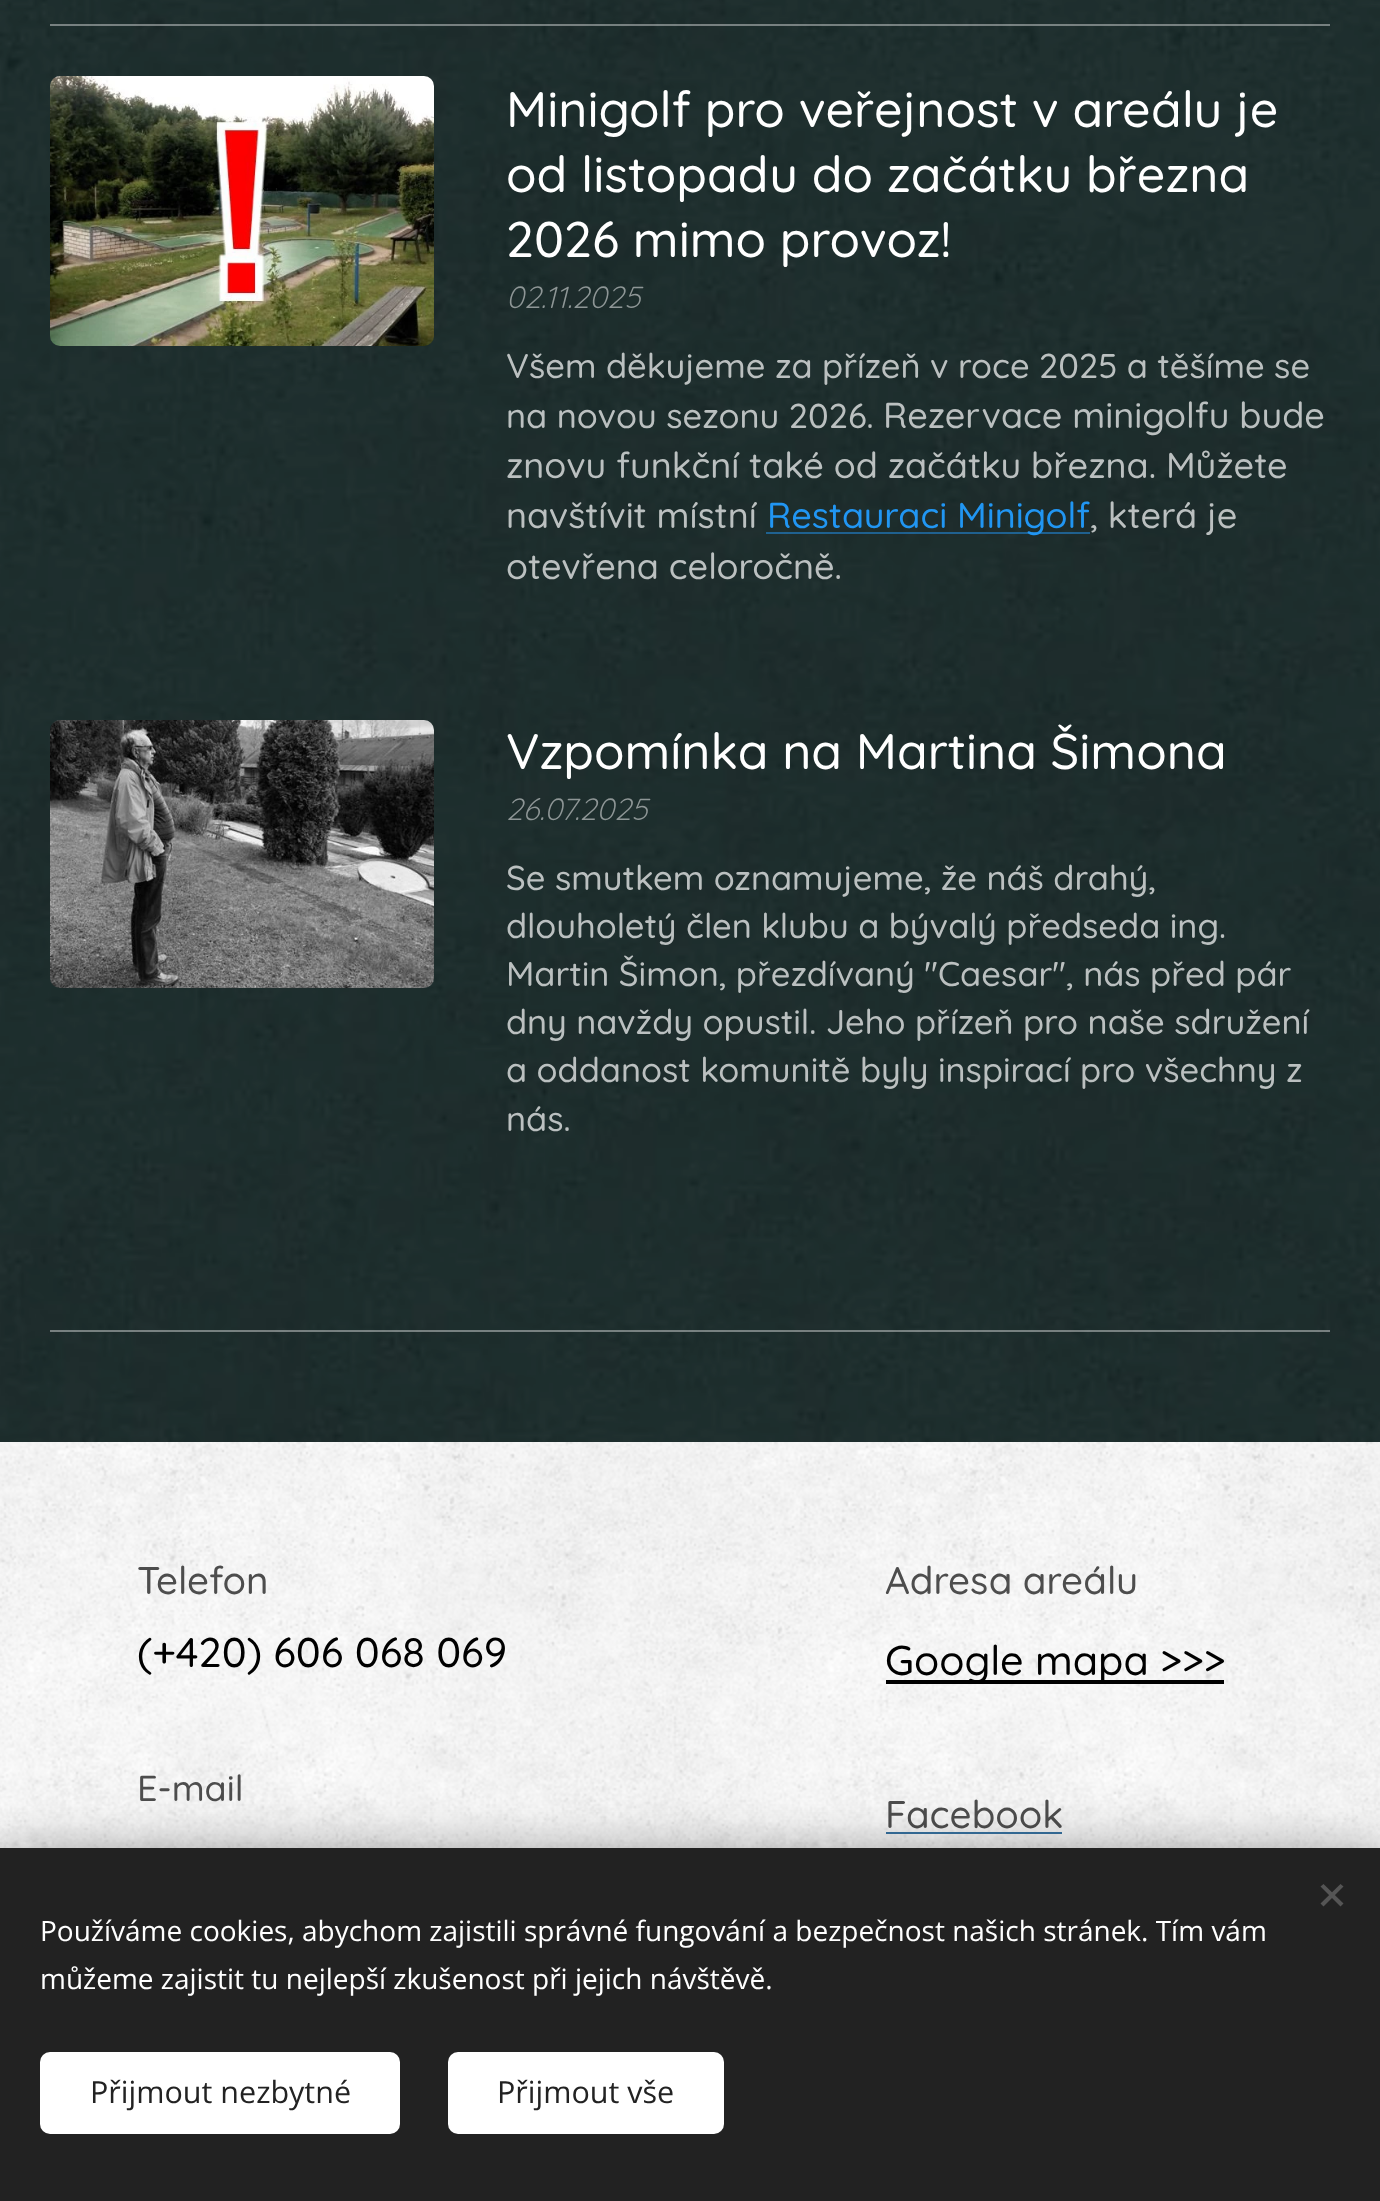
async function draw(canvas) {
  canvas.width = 1380
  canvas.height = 2201
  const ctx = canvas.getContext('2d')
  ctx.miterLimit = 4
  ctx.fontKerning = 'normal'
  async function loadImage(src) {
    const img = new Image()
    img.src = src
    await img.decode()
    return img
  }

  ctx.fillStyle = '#fff'
  ctx.fillRect(0, 0, 1380, 2201)
  ctx.drawImage(await loadImage('image0.png'), 0, 0, 1380, 1442)
  ctx.fillStyle = '#ffffff66'
  ctx.fillRect(50, 24, 1280, 2)
  ctx.drawImage(await loadImage('image1.png'), 50, 76, 384, 270)
  ctx.font = '500 50px Quicksand'
  ctx.fillStyle = '#fff'
  ctx.fillText('Minigolf pro veřejnost v areálu je', 506, 127)
  ctx.fillText('od listopadu do začátku března', 506, 192)
  ctx.fillText('2026 mimo provoz!', 506, 257)
  ctx.font = 'italic 300 30.5px Quicksand'
  ctx.fillStyle = '#8e9696'
  ctx.fillText('02.11.2025', 506, 308)
  ctx.font = '500 34.4px Quicksand'
  ctx.fillStyle = '#bbc0c0'
  ctx.fillText('Všem děkujeme za přízeň v roce 2025 a těšíme se', 506, 378)
  ctx.fillText('na novou sezonu 2026.', 506, 428)
  ctx.font = '500 36px Quicksand'
  ctx.fillText('Rezervace minigolfu bude', 883, 428)
  ctx.fillText('znovu funkční také od začátku března. Můžete', 506, 478)
  ctx.fillText('navštívit místní', 506, 528)
  ctx.fillStyle = '#2196f380'
  ctx.fillRect(766, 532, 324, 2)
  ctx.fillStyle = '#2196f3'
  ctx.fillText('Restauraci Minigolf', 767, 528)
  ctx.fillStyle = '#bbc0c0'
  ctx.fillText(', která je', 1090, 528)
  ctx.fillText('otevřena celoročně.', 506, 579)
  ctx.drawImage(await loadImage('image2.png'), 50, 720, 384, 268)
  ctx.font = '500 50px Quicksand'
  ctx.fillStyle = '#fff'
  ctx.fillText('Vzpomínka na Martina Šimona', 506, 769)
  ctx.font = 'italic 300 30.5px Quicksand'
  ctx.fillStyle = '#8e9696'
  ctx.fillText('26.07.2025', 506, 820)
  ctx.font = '500 34.4px Quicksand'
  ctx.fillStyle = '#bbc0c0'
  ctx.fillText('Se smutkem oznamujeme, že náš drahý,', 506, 890)
  ctx.fillText('dlouholetý člen klubu a bývalý předseda ing.', 506, 938)
  ctx.fillText('Martin Šimon, přezdívaný "Caesar", nás před pár', 506, 986)
  ctx.fillText('dny navždy opustil. Jeho přízeň pro naše sdružení', 506, 1034)
  ctx.fillText('a oddanost komunitě byly inspirací pro všechny z', 506, 1082)
  ctx.fillText('nás.', 506, 1131)
  ctx.fillStyle = '#ffffff66'
  ctx.fillRect(50, 1330, 1280, 2)
  ctx.drawImage(await loadImage('image3.png'), 0, 1442, 1380, 406)
  ctx.font = '500 38.5px Quicksand'
  ctx.fillStyle = '#4d4d4d'
  ctx.fillText('Telefon', 137, 1594)
  ctx.font = '500 41.5px Quicksand'
  ctx.fillStyle = '#000'
  ctx.fillText('(+420) 606 068 069', 137, 1667)
  ctx.font = '500 36px Quicksand'
  ctx.fillStyle = '#4d4d4d'
  ctx.fillText('E-mail', 137, 1801)
  ctx.font = '500 38.5px Quicksand'
  ctx.fillText('Adresa areálu', 885, 1594)
  ctx.font = '500 41.5px Quicksand'
  ctx.fillStyle = '#000'
  ctx.fillText('G', 885, 1675)
  ctx.fillRect(886, 1680, 338, 4)
  ctx.font = '500 41.25px Quicksand'
  ctx.fillText('oogle mapa >>>', 914, 1675)
  ctx.font = '500 38.5px Quicksand'
  ctx.fillStyle = '#4d4d4d'
  ctx.fillText('Facebook', 885, 1828)
  ctx.fillStyle = '#3772a0'
  ctx.fillRect(886, 1832, 176, 2)
  ctx.fillStyle = '#00000054'
  ctx.filter = 'blur(25px)'
  ctx.beginPath()
  ctx.rect(0, 1848, 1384, 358)
  ctx.fill()
  ctx.filter = 'none'
  ctx.fillStyle = '#222'
  ctx.fillRect(0, 1848, 1380, 353)
  ctx.fillStyle = '#555'
  ctx.beginPath()
  ctx.moveTo(1320.5, 1903.5)
  ctx.lineTo(1340.5, 1884)
  ctx.lineTo(1343.5, 1886.5)
  ctx.lineTo(1323.5, 1906.5)
  ctx.closePath()
  ctx.fill()
  ctx.beginPath()
  ctx.moveTo(1323.5, 1884)
  ctx.lineTo(1343.5, 1903.5)
  ctx.lineTo(1340.5, 1906.5)
  ctx.lineTo(1320.5, 1886.5)
  ctx.closePath()
  ctx.fill()
  ctx.font = '28px Open Sans'
  ctx.fillStyle = '#fff'
  ctx.fillText('Používáme cookies, abychom zajistili správné fungování a bezpečnost našich stránek. Tím vám', 40, 1941)
  ctx.fillText('můžeme zajistit tu nejlepší zkušenost při jejich návštěvě.', 40, 1989)
  ctx.beginPath()
  ctx.roundRect(40, 2052, 360, 82, 10)
  ctx.fill()
  ctx.font = '30.5px Open Sans'
  ctx.fillStyle = '#222'
  ctx.fillText('Přijmout nezbytné', 90, 2103)
  ctx.fillStyle = '#fff'
  ctx.beginPath()
  ctx.roundRect(448, 2052, 276, 82, 10)
  ctx.fill()
  ctx.fillStyle = '#222'
  ctx.fillText('Přijmout vše', 497, 2103)
}

draw(document.querySelector('canvas'))
